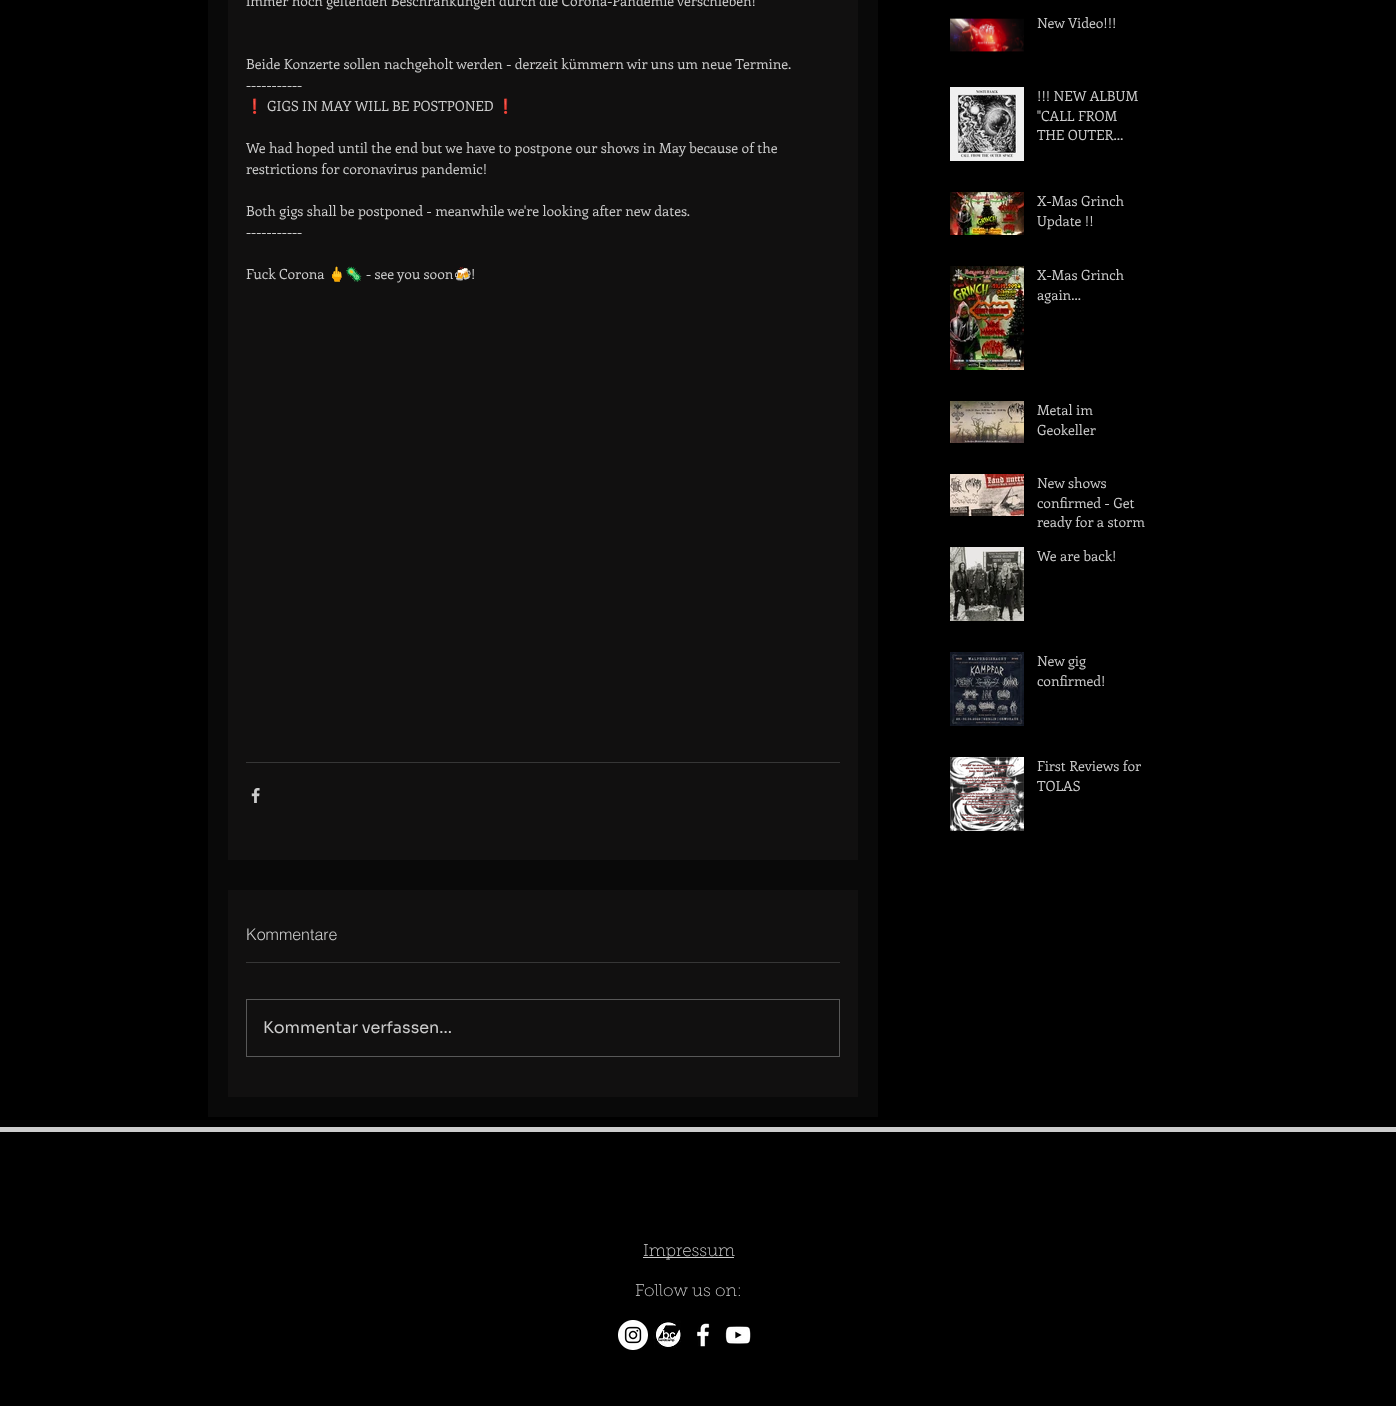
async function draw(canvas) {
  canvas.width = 1396
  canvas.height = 1406
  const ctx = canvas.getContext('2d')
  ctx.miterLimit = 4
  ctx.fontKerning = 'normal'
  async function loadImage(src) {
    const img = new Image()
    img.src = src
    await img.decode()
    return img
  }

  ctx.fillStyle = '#000'
  ctx.fillRect(0, 0, 1396, 1406)
  ctx.fillStyle = '#090909'
  ctx.fillRect(208, 0, 670, 1117)
  ctx.fillStyle = '#111010'
  ctx.fillRect(228, 0, 630, 860)
  ctx.font = '14px Enriqueta'
  ctx.fillStyle = '#ccc'
  ctx.fillText('immer noch geltenden Beschränkungen durch die Corona-Pandemie verschieben!', 246, 6)
  ctx.fillText('Beide Konzerte sollen nachgeholt werden - derzeit kümmern wir uns um neue Termine.', 246, 69)
  ctx.fillText('-----------', 246, 90)
  ctx.font = '14px Noto Color Emoji'
  ctx.fillText('❗️', 246, 111)
  ctx.font = '14px Enriqueta'
  ctx.fillText('GIGS IN MAY WILL BE POSTPONED', 267, 111)
  ctx.font = '14px Noto Color Emoji'
  ctx.fillText('❗️', 497, 111)
  ctx.font = '14px Enriqueta'
  ctx.fillText('We had hoped until the end but we have to postpone our shows in May because of the', 246, 153)
  ctx.fillText('restrictions for coronavirus pandemic!', 246, 174)
  ctx.fillText('Both gigs shall be postponed - meanwhile we\'re looking after new dates.', 246, 216)
  ctx.fillText('-----------', 246, 237)
  ctx.fillText('Fuck Corona', 246, 279)
  ctx.font = '14px Noto Color Emoji'
  ctx.fillText('🖕🦠', 328, 279)
  ctx.font = '14px Enriqueta'
  ctx.fillText('- see you soon', 366, 279)
  ctx.font = '14px Noto Color Emoji'
  ctx.fillText('🍻', 454, 279)
  ctx.font = '14px Enriqueta'
  ctx.fillText('!', 471, 279)
  ctx.fillStyle = '#363636'
  ctx.fillRect(246, 762, 594, 1)
  ctx.drawImage(await loadImage('image0.png'), 251, 788, 9, 15)
  ctx.fillStyle = '#111010'
  ctx.fillRect(228, 890, 630, 207)
  ctx.font = '300 16px helvetica'
  ctx.fillStyle = '#ccc'
  ctx.fillText('Kommentare', 246, 940)
  ctx.fillStyle = '#363636'
  ctx.fillRect(246, 962, 594, 1)
  ctx.strokeStyle = '#585858'
  ctx.strokeRect(246.5, 999.5, 593, 57)
  ctx.font = '16px Sora'
  ctx.fillStyle = '#ccc'
  ctx.fillText('Kommentar verfassen...', 263, 1033)
  ctx.drawImage(await loadImage('image1.png'), 950, 18, 74, 34)
  ctx.font = '14px Enriqueta'
  ctx.fillText('New Video!!!', 1037, 28)
  ctx.drawImage(await loadImage('image2.png'), 950, 87, 74, 74)
  ctx.fillText('!!! NEW ALBUM', 1037, 101)
  ctx.fillText('"CALL FROM', 1037, 121)
  ctx.fillText('THE OUTER…', 1037, 140)
  ctx.drawImage(await loadImage('image3.png'), 950, 192, 74, 43)
  ctx.fillText('X-Mas Grinch', 1037, 206)
  ctx.fillText('Update !!', 1037, 226)
  ctx.drawImage(await loadImage('image4.png'), 950, 266, 74, 104)
  ctx.fillText('X-Mas Grinch', 1037, 280)
  ctx.fillText('again...', 1037, 300)
  ctx.drawImage(await loadImage('image5.png'), 950, 401, 74, 42)
  ctx.fillText('Metal im', 1037, 415)
  ctx.fillText('Geokeller', 1037, 435)
  ctx.drawImage(await loadImage('image6.png'), 950, 474, 74, 42)
  ctx.fillText('New shows', 1037, 488)
  ctx.fillText('confirmed - Get', 1037, 508)
  ctx.save()
  ctx.beginPath()
  ctx.rect(1037, 473, 108, 56)
  ctx.clip()
  ctx.fillText('ready for a storm', 1037, 527)
  ctx.restore()
  ctx.drawImage(await loadImage('image7.png'), 950, 547, 74, 74)
  ctx.fillText('We are back!', 1037, 561)
  ctx.drawImage(await loadImage('image8.png'), 950, 652, 74, 74)
  ctx.fillText('New gig', 1037, 666)
  ctx.fillText('confirmed!', 1037, 686)
  ctx.drawImage(await loadImage('image9.png'), 950, 757, 74, 74)
  ctx.fillText('First Reviews for', 1037, 771)
  ctx.fillText('TOLAS', 1037, 791)
  ctx.fillRect(0, 1127, 1396, 5)
  ctx.fillRect(643, 1257, 91, 1)
  ctx.font = '100 17px "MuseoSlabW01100"'
  ctx.fillText('Impressum', 643, 1256)
  ctx.fillText('Follow us on:', 635, 1296)
  ctx.drawImage(await loadImage('image10.png'), 618, 1320, 30, 30)
  ctx.drawImage(await loadImage('image11.png'), 653, 1320, 28, 28)
  ctx.drawImage(await loadImage('image12.png'), 697, 1323, 13, 24)
  ctx.drawImage(await loadImage('image13.png'), 725, 1326, 26, 18)
}

draw(document.querySelector('canvas'))
